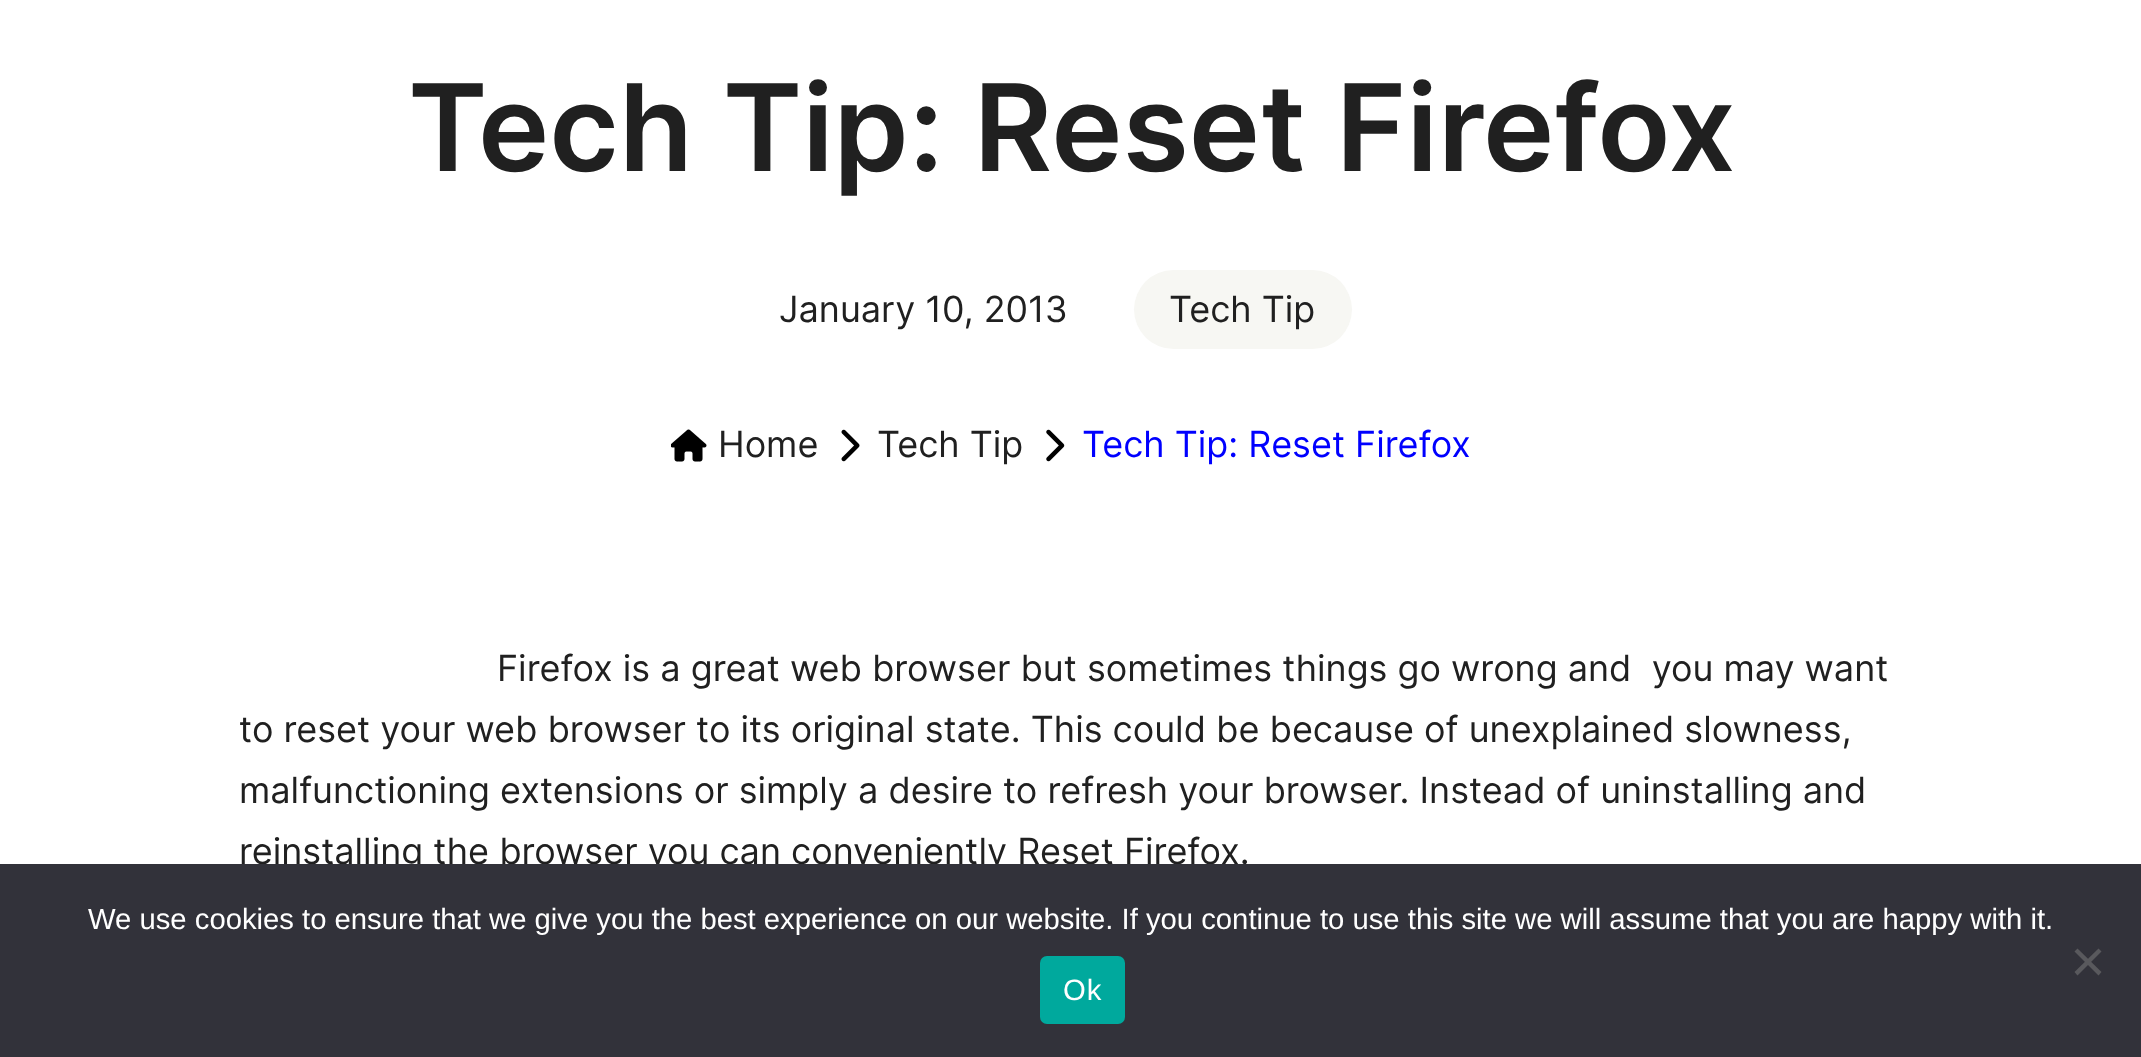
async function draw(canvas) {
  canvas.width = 2141
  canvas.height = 1057
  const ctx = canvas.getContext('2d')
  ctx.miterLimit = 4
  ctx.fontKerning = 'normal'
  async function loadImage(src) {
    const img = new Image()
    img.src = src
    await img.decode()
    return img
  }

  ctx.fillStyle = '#fff'
  ctx.fillRect(0, 0, 2141, 1057)
  ctx.font = '600 120.5px Inter'
  ctx.fillStyle = '#202020'
  ctx.fillText('Tech Tip: Reset Firefox', 408, 171)
  ctx.font = '36px Inter'
  ctx.fillText('January 10, 2013', 779, 322)
  ctx.fillStyle = '#f7f7f3'
  ctx.beginPath()
  ctx.roundRect(1134, 270, 218, 79, 39.5)
  ctx.fill()
  ctx.fillStyle = '#202020'
  ctx.fillText('Tech Tip', 1169, 322)
  ctx.drawImage(await loadImage('image0.png'), 671, 429, 36, 33)
  ctx.fillText('Home', 718, 457)
  ctx.drawImage(await loadImage('image1.png'), 841, 429, 19, 33)
  ctx.fillText('Tech Tip', 877, 457)
  ctx.drawImage(await loadImage('image2.png'), 1046, 429, 19, 33)
  ctx.fillStyle = '#00f'
  ctx.fillText('Tech Tip: Reset Firefox', 1082, 457)
  ctx.fillStyle = '#202020'
  ctx.fillText('Firefox is a great web browser but sometimes things go wrong and  you may want', 497, 681)
  ctx.fillText('to reset your web browser to its original state. This could be because of unexplained slowness,', 239, 742)
  ctx.fillText('malfunctioning extensions or simply a desire to refresh your browser. Instead of uninstalling and', 239, 803)
  ctx.fillText('reinstalling the browser you can conveniently Reset Firefox.', 239, 864)
  ctx.fillStyle = '#32323a'
  ctx.fillRect(0, 864, 2141, 193)
  ctx.font = '29.25px Liberation Sans'
  ctx.fillStyle = '#fff'
  ctx.fillText('We use cookies to ensure that we give you the best experience on our website. If you continue to use this site we will assume that you are happy with it.', 88, 929)
  ctx.fillStyle = '#59595d'
  ctx.beginPath()
  ctx.moveTo(2098.5, 948.5)
  ctx.lineTo(2101.5, 951.5)
  ctx.lineTo(2077.5, 975.5)
  ctx.lineTo(2074.5, 972)
  ctx.closePath()
  ctx.fill()
  ctx.beginPath()
  ctx.moveTo(2074.5, 951.5)
  ctx.lineTo(2077.5, 948.5)
  ctx.lineTo(2101.5, 972)
  ctx.lineTo(2098.5, 975.5)
  ctx.closePath()
  ctx.fill()
  ctx.fillStyle = '#00a99d'
  ctx.beginPath()
  ctx.roundRect(1040, 956, 85, 68, 7)
  ctx.fill()
  ctx.letterSpacing = '1px'
  ctx.fillStyle = '#fff'
  ctx.fillText('Ok', 1063, 1000)
}

draw(document.querySelector('canvas'))
